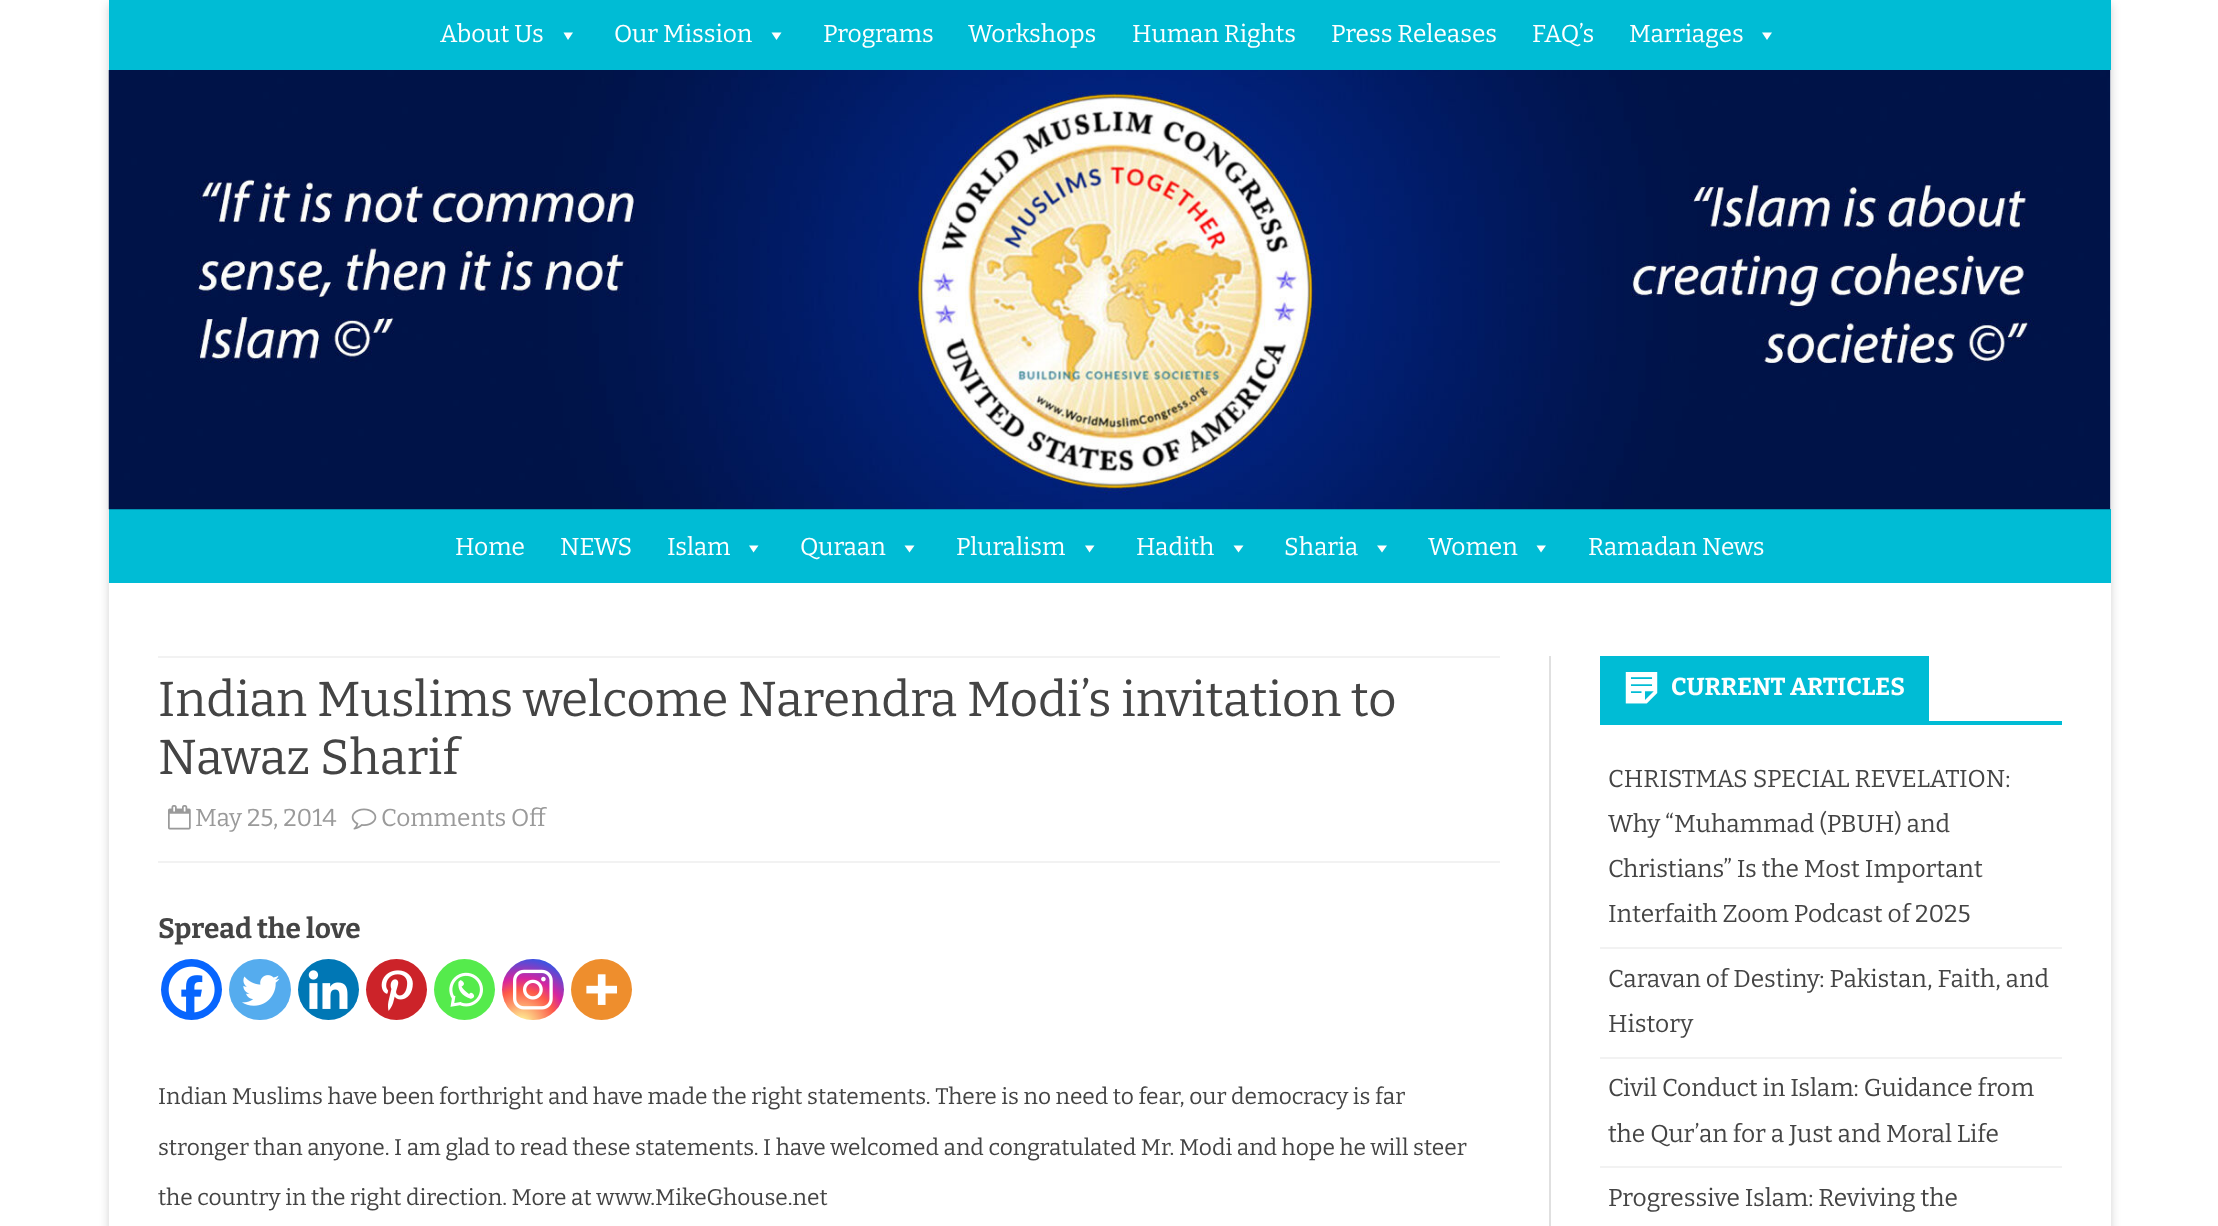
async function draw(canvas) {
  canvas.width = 2218
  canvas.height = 1226
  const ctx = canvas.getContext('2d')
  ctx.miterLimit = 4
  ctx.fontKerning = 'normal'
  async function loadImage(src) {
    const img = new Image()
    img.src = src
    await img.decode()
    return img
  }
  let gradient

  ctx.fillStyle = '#fff'
  ctx.fillRect(0, 0, 2218, 1226)
  ctx.fillStyle = '#6464644d'
  ctx.filter = 'blur(5px)'
  ctx.beginPath()
  ctx.rect(109, 4, 2002, 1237)
  ctx.fill()
  ctx.filter = 'none'
  ctx.fillStyle = '#fff'
  ctx.fillRect(109, 70, 2002, 1156)
  ctx.fillStyle = '#00bcd5'
  ctx.fillRect(109, 0, 2002, 70)
  ctx.font = '24.5px Bitter'
  ctx.fillStyle = '#fff'
  ctx.fillText('About Us', 440, 42)
  ctx.beginPath()
  ctx.moveTo(573, 32.5)
  ctx.lineTo(568, 40)
  ctx.lineTo(563.5, 32.5)
  ctx.closePath()
  ctx.fill()
  ctx.fillText('Our Mission', 614, 42)
  ctx.beginPath()
  ctx.moveTo(781.5, 32.5)
  ctx.lineTo(776.5, 40)
  ctx.lineTo(771.5, 32.5)
  ctx.closePath()
  ctx.fill()
  ctx.fillText('Programs', 823, 42)
  ctx.fillText('Workshops', 968, 42)
  ctx.fillText('Human Rights', 1132, 42)
  ctx.fillText('Press Releases', 1331, 42)
  ctx.fillText('FAQ’s', 1532, 42)
  ctx.fillText('Marriages', 1629, 42)
  ctx.beginPath()
  ctx.moveTo(1772, 32.5)
  ctx.lineTo(1767, 40)
  ctx.lineTo(1762, 32.5)
  ctx.closePath()
  ctx.fill()
  ctx.fillStyle = '#00bcd5'
  ctx.fillRect(109, 509, 2002, 74)
  ctx.drawImage(await loadImage('image0.png'), 108, 70, 2003, 440)
  ctx.fillStyle = '#fff'
  ctx.fillText('Home', 455, 555)
  ctx.fillText('NEWS', 560, 555)
  ctx.fillText('Islam', 667, 555)
  ctx.beginPath()
  ctx.moveTo(758.5, 545.5)
  ctx.lineTo(753.5, 552.5)
  ctx.lineTo(749, 545.5)
  ctx.closePath()
  ctx.fill()
  ctx.fillText('Quraan', 800, 555)
  ctx.beginPath()
  ctx.moveTo(914.5, 545.5)
  ctx.lineTo(909.5, 552.5)
  ctx.lineTo(904.5, 545.5)
  ctx.closePath()
  ctx.fill()
  ctx.fillText('Pluralism', 956, 555)
  ctx.beginPath()
  ctx.moveTo(1094.5, 545.5)
  ctx.lineTo(1089.5, 552.5)
  ctx.lineTo(1085, 545.5)
  ctx.closePath()
  ctx.fill()
  ctx.fillText('Hadith', 1136, 555)
  ctx.beginPath()
  ctx.moveTo(1243.5, 545.5)
  ctx.lineTo(1238.5, 552.5)
  ctx.lineTo(1233.5, 545.5)
  ctx.closePath()
  ctx.fill()
  ctx.fillText('Sharia', 1284, 555)
  ctx.beginPath()
  ctx.moveTo(1387, 545.5)
  ctx.lineTo(1382, 552.5)
  ctx.lineTo(1377, 545.5)
  ctx.closePath()
  ctx.fill()
  ctx.fillText('Women', 1428, 555)
  ctx.beginPath()
  ctx.moveTo(1546, 545.5)
  ctx.lineTo(1541, 552.5)
  ctx.lineTo(1536.5, 545.5)
  ctx.closePath()
  ctx.fill()
  ctx.fillText('Ramadan News', 1588, 555)
  ctx.fillStyle = '#e0e0e0'
  ctx.fillRect(1549, 656, 2, 570)
  ctx.fillStyle = '#f2f2f2'
  ctx.fillRect(158, 656, 1342, 2)
  ctx.fillRect(158, 861, 1342, 2)
  ctx.font = '49px Bitter'
  ctx.fillStyle = '#444'
  ctx.fillText('Indian Muslims welcome Narendra Modi’s invitation to', 158, 716)
  ctx.fillText('Nawaz Sharif', 158, 774)
  ctx.drawImage(await loadImage('image1.png'), 168, 805, 23, 25)
  ctx.font = '24.5px Bitter'
  ctx.fillStyle = '#9a9a9a'
  ctx.fillText('May 25, 2014', 195, 826)
  ctx.drawImage(await loadImage('image2.png'), 351, 808, 26, 22)
  ctx.fillText('Comments Off', 381, 826)
  ctx.font = 'bold 28px Bitter'
  ctx.fillStyle = '#444'
  ctx.fillText('Spread the love', 158, 938)
  ctx.fillStyle = '#0765fe'
  ctx.beginPath()
  ctx.arc(191.5, 989.5, 30.5, 0, 2 * Math.PI)
  ctx.fill()
  ctx.drawImage(await loadImage('image3.png'), 168, 966, 47, 47)
  ctx.fillStyle = '#55acee'
  ctx.beginPath()
  ctx.roundRect(229, 959, 62, 61, 30.5)
  ctx.fill()
  ctx.drawImage(await loadImage('image4.png'), 242, 975, 38, 31)
  ctx.fillStyle = '#0077b5'
  ctx.beginPath()
  ctx.arc(328.5, 989.5, 30.5, 0, 2 * Math.PI)
  ctx.fill()
  ctx.drawImage(await loadImage('image5.png'), 308, 970, 40, 39)
  ctx.fillStyle = '#cc2329'
  ctx.beginPath()
  ctx.arc(396.5, 989.5, 30.5, 0, 2 * Math.PI)
  ctx.fill()
  ctx.drawImage(await loadImage('image6.png'), 381, 970, 32, 41)
  ctx.fillStyle = '#55eb4c'
  ctx.beginPath()
  ctx.arc(464.5, 989.5, 30.5, 0, 2 * Math.PI)
  ctx.fill()
  ctx.drawImage(await loadImage('image7.png'), 449, 972, 34, 35)
  gradient = ctx.createRadialGradient(521, 1025, 0, 521, 1025, 78)
  gradient.addColorStop(0, '#fdf497')
  gradient.addColorStop(0.05, '#fdf497')
  gradient.addColorStop(0.45, '#fd5949')
  gradient.addColorStop(0.6, '#d6249f')
  gradient.addColorStop(0.9, '#285aeb')
  ctx.fillStyle = gradient
  ctx.beginPath()
  ctx.roundRect(502, 959, 62, 61, 30.5)
  ctx.fill()
  ctx.drawImage(await loadImage('image8.png'), 513, 969, 40, 41)
  ctx.fillStyle = '#ee8e2d'
  ctx.beginPath()
  ctx.arc(601.5, 989.5, 30.5, 0, 2 * Math.PI)
  ctx.fill()
  ctx.drawImage(await loadImage('image9.png'), 586, 974, 31, 31)
  ctx.font = '22.75px Bitter'
  ctx.fillStyle = '#444'
  ctx.fillText('Indian Muslims have been forthright and have made the right statements. There is no need to fear, our democracy is far', 158, 1104)
  ctx.fillText('stronger than anyone. I am glad to read these statements. I have welcomed and congratulated Mr. Modi and hope he will steer', 158, 1155)
  ctx.fillText('the country in the right direction. More at www.MikeGhouse.net', 158, 1205)
  ctx.fillStyle = '#00bcd5'
  ctx.fillRect(1600, 721, 462, 4)
  ctx.fillRect(1600, 656, 329, 65)
  ctx.drawImage(await loadImage('image10.png'), 1625, 672, 33, 32)
  ctx.font = 'bold 24.5px Bitter'
  ctx.fillStyle = '#fff'
  ctx.fillText('CURRENT ARTICLES', 1671, 695)
  ctx.fillStyle = '#f2f2f2'
  ctx.fillRect(1600, 947, 462, 2)
  ctx.font = '24.5px Bitter'
  ctx.fillStyle = '#444'
  ctx.fillText('CHRISTMAS SPECIAL REVELATION:', 1608, 787)
  ctx.fillText('Why “Muhammad (PBUH) and', 1608, 832)
  ctx.fillText('Christians” Is the Most Important', 1608, 877)
  ctx.fillText('Interfaith Zoom Podcast of 2025', 1608, 922)
  ctx.fillStyle = '#f2f2f2'
  ctx.fillRect(1600, 1057, 462, 2)
  ctx.fillStyle = '#444'
  ctx.fillText('Caravan of Destiny: Pakistan, Faith, and', 1608, 987)
  ctx.fillText('History', 1608, 1032)
  ctx.fillStyle = '#f2f2f2'
  ctx.fillRect(1600, 1166, 462, 2)
  ctx.fillStyle = '#444'
  ctx.fillText('Civil Conduct in Islam: Guidance from', 1608, 1096)
  ctx.fillText('the Qur’an for a Just and Moral Life', 1608, 1142)
  ctx.fillText('Progressive Islam: Reviving the', 1608, 1206)
}

draw(document.querySelector('canvas'))
